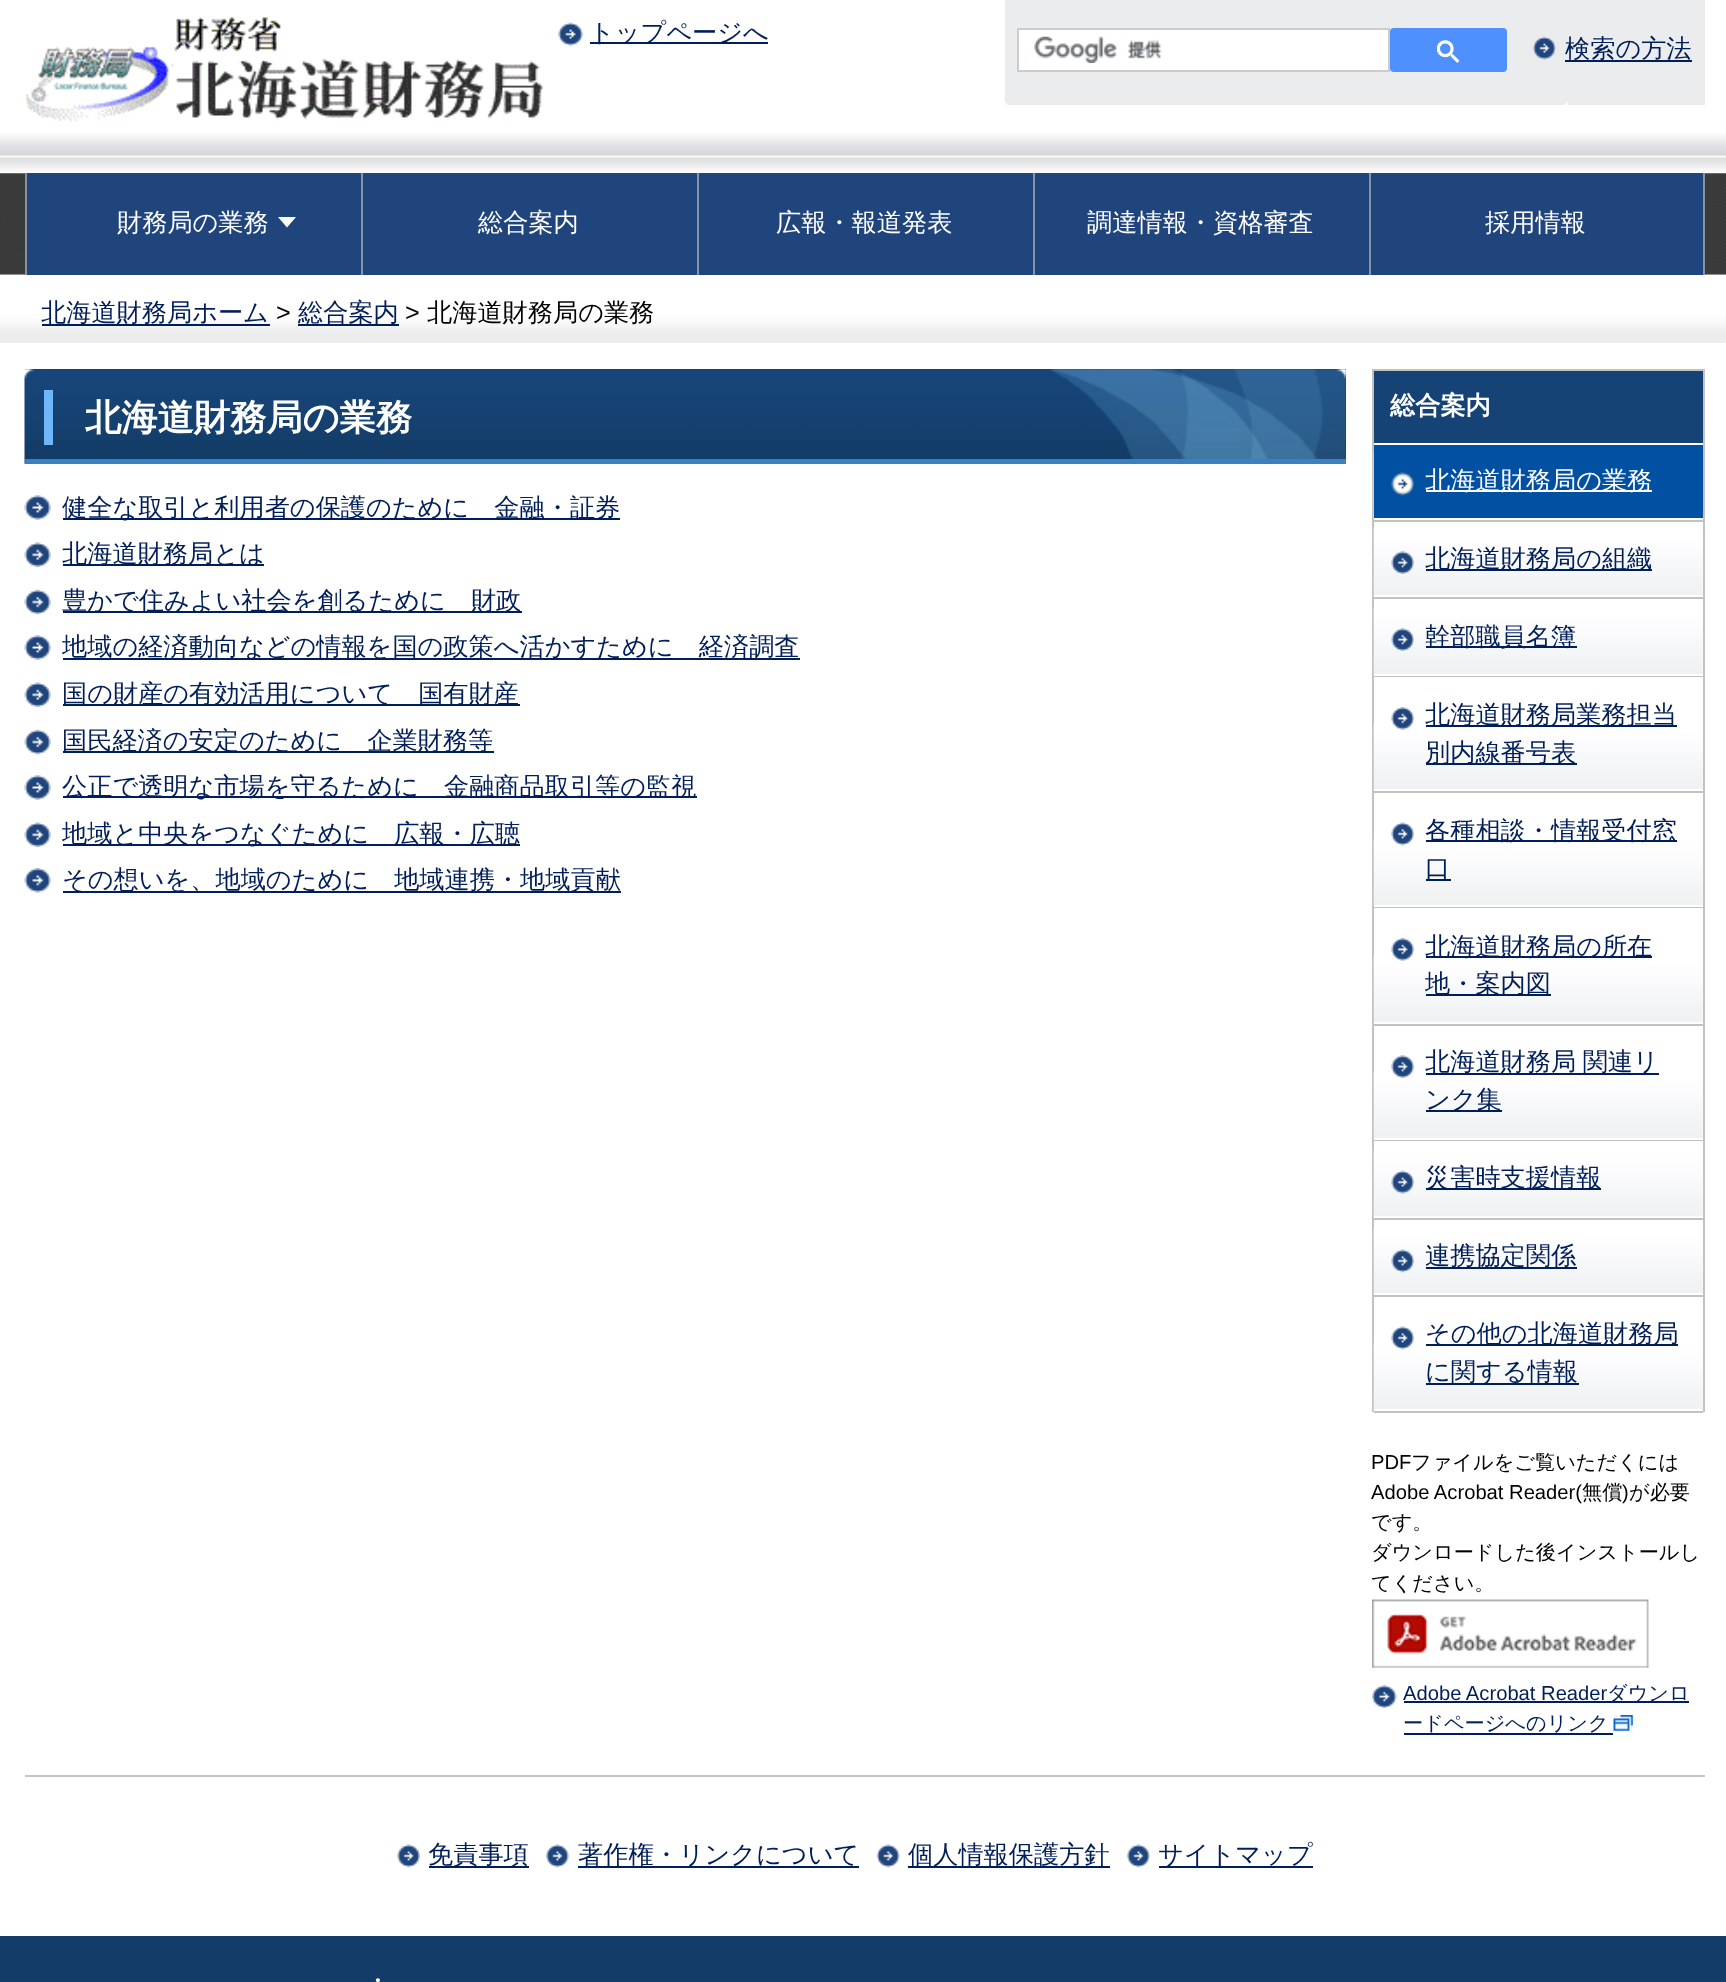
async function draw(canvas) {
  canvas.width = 1726
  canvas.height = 1982
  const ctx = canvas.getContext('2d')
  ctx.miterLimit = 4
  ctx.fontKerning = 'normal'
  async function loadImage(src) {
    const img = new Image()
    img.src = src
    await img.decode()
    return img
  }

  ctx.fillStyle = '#fff'
  ctx.fillRect(0, 0, 1726, 1982)
  ctx.drawImage(await loadImage('image0.png'), 0, 133, 1726, 39)
  ctx.drawImage(await loadImage('image1.png'), 26, 17, 517, 105)
  ctx.drawImage(await loadImage('image2.png'), 558, 22, 25, 24)
  ctx.fillStyle = '#001e59'
  ctx.fillRect(590, 42, 178, 2)
  ctx.font = '500 25.2px WenQuanYi Zen Hei'
  ctx.fillText('トップページへ', 589, 41)
  ctx.fillStyle = '#ebecee'
  ctx.fillRect(1005, 0, 700, 105)
  ctx.drawImage(await loadImage('image3.png'), 1004, 96, 564, 9)
  ctx.fillStyle = '#fff'
  ctx.fillRect(1019, 30, 369, 40)
  ctx.drawImage(await loadImage('image4.png'), 1034, 36, 128, 27)
  ctx.strokeStyle = '#ccc'
  ctx.lineWidth = 2
  ctx.strokeRect(1018, 29, 371, 42)
  ctx.fillStyle = '#4d90fe'
  ctx.beginPath()
  ctx.roundRect(1390, 28, 117, 44, 4)
  ctx.fill()
  ctx.drawImage(await loadImage('image5.png'), 1437, 40, 23, 23)
  ctx.drawImage(await loadImage('image6.png'), 1533, 36, 23, 24)
  ctx.fillStyle = '#001e59'
  ctx.fillRect(1565, 60, 127, 2)
  ctx.fillText('検索の方法', 1565, 57)
  ctx.drawImage(await loadImage('image7.png'), 0, 173, 1726, 102)
  ctx.drawImage(await loadImage('image8.png'), 0, 274, 1726, 69)
  ctx.fillStyle = '#20457c'
  ctx.fillRect(27, 173, 334, 102)
  ctx.fillStyle = '#8394a4'
  ctx.fillRect(25, 173, 2, 102)
  ctx.fillStyle = '#fff'
  ctx.fillText('財務局の業務', 117, 231)
  ctx.beginPath()
  ctx.moveTo(278, 217)
  ctx.lineTo(296, 217)
  ctx.lineTo(287, 227.5)
  ctx.closePath()
  ctx.fill()
  ctx.fillStyle = '#20457c'
  ctx.fillRect(363, 173, 334, 102)
  ctx.fillStyle = '#8394a4'
  ctx.fillRect(361, 173, 2, 102)
  ctx.fillStyle = '#fff'
  ctx.fillText('総合案内', 478, 231)
  ctx.fillStyle = '#20457c'
  ctx.fillRect(699, 173, 334, 102)
  ctx.fillStyle = '#8394a4'
  ctx.fillRect(697, 173, 2, 102)
  ctx.fillStyle = '#fff'
  ctx.fillText('広報・報道発表', 776, 231)
  ctx.fillStyle = '#20457c'
  ctx.fillRect(1035, 173, 334, 102)
  ctx.fillStyle = '#8394a4'
  ctx.fillRect(1033, 173, 2, 102)
  ctx.fillStyle = '#fff'
  ctx.fillText('調達情報・資格審査', 1087, 231)
  ctx.fillStyle = '#20457c'
  ctx.fillRect(1371, 173, 332, 102)
  ctx.fillStyle = '#8394a4'
  ctx.fillRect(1703, 173, 2, 102)
  ctx.fillRect(1369, 173, 2, 102)
  ctx.fillStyle = '#fff'
  ctx.fillText('採用情報', 1485, 231)
  ctx.fillStyle = '#001e59'
  ctx.fillRect(42, 324, 228, 2)
  ctx.fillText('北海道財務局ホーム', 41, 321)
  ctx.font = '25.2px Liberation Sans'
  ctx.fillStyle = '#000'
  ctx.fillText('>', 276, 321)
  ctx.fillStyle = '#001e59'
  ctx.fillRect(298, 324, 101, 2)
  ctx.font = '500 25.2px WenQuanYi Zen Hei'
  ctx.fillText('総合案内', 298, 321)
  ctx.font = '25.2px Liberation Sans'
  ctx.fillStyle = '#000'
  ctx.fillText('>', 405, 321)
  ctx.font = '500 25.2px WenQuanYi Zen Hei'
  ctx.fillText('北海道財務局の業務', 427, 321)
  ctx.fillStyle = '#113b63'
  ctx.fillRect(25, 369, 1321, 90)
  ctx.drawImage(await loadImage('image9.png'), 24, 369, 1322, 95)
  ctx.fillStyle = '#3a81c3'
  ctx.fillRect(25, 459, 1321, 5)
  ctx.fillStyle = '#70b7f9'
  ctx.fillRect(44, 390, 9, 55)
  ctx.font = 'bold 36.25px WenQuanYi Zen Hei'
  ctx.fillStyle = '#fff'
  ctx.fillText('北海道財務局の業務', 85, 430)
  ctx.drawImage(await loadImage('image10.png'), 24, 495, 27, 25)
  ctx.fillStyle = '#001e59'
  ctx.fillRect(63, 518, 557, 2)
  ctx.font = '500 25.2px WenQuanYi Zen Hei'
  ctx.fillText('健全な取引と利用者の保護のために　金融・証券', 62, 516)
  ctx.drawImage(await loadImage('image11.png'), 24, 542, 27, 25)
  ctx.fillRect(63, 564, 201, 2)
  ctx.fillText('北海道財務局とは', 62, 562)
  ctx.drawImage(await loadImage('image12.png'), 24, 589, 27, 26)
  ctx.fillRect(63, 611, 459, 2)
  ctx.fillText('豊かで住みよい社会を創るために　財政', 62, 609)
  ctx.drawImage(await loadImage('image13.png'), 24, 635, 27, 25)
  ctx.fillRect(63, 658, 737, 2)
  ctx.fillText('地域の経済動向などの情報を国の政策へ活かすために　経済調査', 62, 655)
  ctx.drawImage(await loadImage('image11.png'), 24, 682, 27, 25)
  ctx.fillRect(63, 704, 457, 2)
  ctx.fillText('国の財産の有効活用について　国有財産', 62, 702)
  ctx.drawImage(await loadImage('image12.png'), 24, 729, 27, 26)
  ctx.fillRect(63, 751, 431, 2)
  ctx.fillText('国民経済の安定のために　企業財務等', 62, 749)
  ctx.drawImage(await loadImage('image13.png'), 24, 775, 27, 25)
  ctx.fillRect(63, 796, 634, 2)
  ctx.fillText('公正で透明な市場を守るために　金融商品取引等の監視', 62, 795)
  ctx.drawImage(await loadImage('image11.png'), 24, 822, 27, 25)
  ctx.fillRect(63, 844, 457, 2)
  ctx.fillText('地域と中央をつなぐために　広報・広聴', 62, 842)
  ctx.drawImage(await loadImage('image14.png'), 24, 868, 27, 25)
  ctx.fillRect(63, 891, 558, 2)
  ctx.fillText('その想いを、地域のために　地域連携・地域貢献', 62, 888)
  ctx.fillStyle = '#c2c3be'
  ctx.fillRect(1372, 369, 333, 2)
  ctx.fillRect(1703, 369, 2, 1043)
  ctx.fillRect(1372, 369, 2, 1043)
  ctx.fillStyle = '#154375'
  ctx.fillRect(1374, 371, 329, 72)
  ctx.font = 'bold 25.2px WenQuanYi Zen Hei'
  ctx.fillStyle = '#fff'
  ctx.fillText('総合案内', 1390, 414)
  ctx.drawImage(await loadImage('image15.png'), 1373, 451, 1, 69)
  ctx.fillStyle = '#c2c3be'
  ctx.fillRect(1374, 520, 329, 2)
  ctx.fillStyle = '#0250a2'
  ctx.fillRect(1374, 445, 329, 73)
  ctx.drawImage(await loadImage('image16.png'), 1391, 472, 23, 24)
  ctx.fillStyle = '#fff'
  ctx.fillRect(1426, 490, 226, 2)
  ctx.font = '500 25.2px WenQuanYi Zen Hei'
  ctx.fillText('北海道財務局の業務', 1425, 489)
  ctx.drawImage(await loadImage('image17.png'), 1373, 528, 330, 69)
  ctx.fillStyle = '#c2c3be'
  ctx.fillRect(1374, 597, 329, 2)
  ctx.drawImage(await loadImage('image18.png'), 1391, 551, 23, 23)
  ctx.fillStyle = '#fff'
  ctx.fillRect(1374, 595, 329, 2)
  ctx.fillStyle = '#001e59'
  ctx.fillRect(1426, 569, 226, 2)
  ctx.fillText('北海道財務局の組織', 1425, 567)
  ctx.drawImage(await loadImage('image19.png'), 1373, 607, 330, 69)
  ctx.fillStyle = '#c2c3be'
  ctx.fillRect(1374, 676, 329, 1)
  ctx.drawImage(await loadImage('image20.png'), 1391, 628, 23, 23)
  ctx.fillStyle = '#fff'
  ctx.fillRect(1374, 674, 329, 2)
  ctx.fillStyle = '#001e59'
  ctx.fillRect(1426, 646, 151, 2)
  ctx.fillText('幹部職員名簿', 1425, 645)
  ctx.drawImage(await loadImage('image21.png'), 1373, 722, 330, 69)
  ctx.fillStyle = '#c2c3be'
  ctx.fillRect(1374, 791, 329, 2)
  ctx.drawImage(await loadImage('image22.png'), 1391, 707, 23, 23)
  ctx.fillStyle = '#fff'
  ctx.fillRect(1374, 789, 329, 2)
  ctx.fillStyle = '#001e59'
  ctx.fillRect(1426, 725, 251, 2)
  ctx.fillText('北海道財務局業務担当', 1425, 723)
  ctx.fillRect(1426, 763, 151, 2)
  ctx.fillText('別内線番号表', 1425, 761)
  ctx.drawImage(await loadImage('image19.png'), 1373, 838, 330, 69)
  ctx.fillStyle = '#c2c3be'
  ctx.fillRect(1374, 907, 329, 1)
  ctx.drawImage(await loadImage('image23.png'), 1391, 822, 23, 24)
  ctx.fillStyle = '#fff'
  ctx.fillRect(1374, 905, 329, 2)
  ctx.fillStyle = '#001e59'
  ctx.fillRect(1426, 840, 251, 2)
  ctx.fillText('各種相談・情報受付窓', 1425, 839)
  ctx.fillRect(1426, 879, 25, 2)
  ctx.fillText('口', 1425, 877)
  ctx.drawImage(await loadImage('image17.png'), 1373, 955, 330, 69)
  ctx.fillStyle = '#c2c3be'
  ctx.fillRect(1374, 1024, 329, 2)
  ctx.drawImage(await loadImage('image22.png'), 1391, 938, 23, 23)
  ctx.fillStyle = '#fff'
  ctx.fillRect(1374, 1022, 329, 2)
  ctx.fillStyle = '#001e59'
  ctx.fillRect(1426, 956, 226, 2)
  ctx.fillText('北海道財務局の所在', 1425, 955)
  ctx.fillRect(1426, 994, 125, 2)
  ctx.fillText('地・案内図', 1425, 992)
  ctx.drawImage(await loadImage('image24.png'), 1373, 1071, 330, 69)
  ctx.fillStyle = '#c2c3be'
  ctx.fillRect(1374, 1140, 329, 1)
  ctx.drawImage(await loadImage('image25.png'), 1391, 1055, 23, 23)
  ctx.fillStyle = '#fff'
  ctx.fillRect(1374, 1138, 329, 2)
  ctx.fillStyle = '#001e59'
  ctx.fillRect(1426, 1073, 233, 2)
  ctx.wordSpacing = '-1px'
  ctx.fillText('北海道財務局 関連リ', 1425, 1070)
  ctx.fillRect(1426, 1110, 76, 2)
  ctx.wordSpacing = '0px'
  ctx.fillText('ンク集', 1425, 1108)
  ctx.drawImage(await loadImage('image21.png'), 1373, 1149, 330, 69)
  ctx.fillStyle = '#c2c3be'
  ctx.fillRect(1374, 1218, 329, 2)
  ctx.drawImage(await loadImage('image26.png'), 1391, 1170, 23, 24)
  ctx.fillStyle = '#fff'
  ctx.fillRect(1374, 1216, 329, 2)
  ctx.fillStyle = '#001e59'
  ctx.fillRect(1426, 1188, 175, 2)
  ctx.fillText('災害時支援情報', 1425, 1186)
  ctx.drawImage(await loadImage('image21.png'), 1373, 1226, 330, 69)
  ctx.fillStyle = '#c2c3be'
  ctx.fillRect(1374, 1295, 329, 2)
  ctx.drawImage(await loadImage('image27.png'), 1391, 1249, 23, 24)
  ctx.fillStyle = '#fff'
  ctx.fillRect(1374, 1293, 329, 2)
  ctx.fillStyle = '#001e59'
  ctx.fillRect(1426, 1267, 151, 2)
  ctx.fillText('連携協定関係', 1425, 1264)
  ctx.drawImage(await loadImage('image19.png'), 1373, 1342, 330, 69)
  ctx.fillStyle = '#c2c3be'
  ctx.fillRect(1374, 1411, 329, 2)
  ctx.drawImage(await loadImage('image23.png'), 1391, 1326, 23, 24)
  ctx.fillStyle = '#fff'
  ctx.fillRect(1374, 1409, 329, 2)
  ctx.fillStyle = '#001e59'
  ctx.fillRect(1426, 1344, 252, 2)
  ctx.fillText('その他の北海道財務局', 1425, 1342)
  ctx.fillRect(1426, 1383, 153, 2)
  ctx.fillText('に関する情報', 1425, 1380)
  ctx.font = '20.2px Liberation Sans'
  ctx.fillStyle = '#000'
  ctx.fillText('PDF', 1371, 1469)
  ctx.font = '500 20.2px WenQuanYi Zen Hei'
  ctx.fillText('ファイルをご覧いただくには', 1411, 1469)
  ctx.font = '20.2px Liberation Sans'
  ctx.fillText('Adobe Acrobat Reader(', 1371, 1499)
  ctx.font = '500 20.2px WenQuanYi Zen Hei'
  ctx.fillText('無償', 1582, 1499)
  ctx.font = '20.2px Liberation Sans'
  ctx.fillText(')', 1622, 1499)
  ctx.font = '500 20.2px WenQuanYi Zen Hei'
  ctx.fillText('が必要', 1629, 1499)
  ctx.fillText('です。', 1371, 1529)
  ctx.fillText('ダウンロードした後インストールし', 1371, 1559)
  ctx.fillText('てください。', 1371, 1590)
  ctx.drawImage(await loadImage('image28.png'), 1372, 1599, 277, 69)
  ctx.drawImage(await loadImage('image29.png'), 1372, 1685, 25, 23)
  ctx.font = '20.2px Liberation Sans'
  ctx.fillStyle = '#001e59'
  ctx.fillText('Adobe Acrobat Reader', 1403, 1700)
  ctx.fillRect(1404, 1701, 285, 2)
  ctx.font = '500 20.2px WenQuanYi Zen Hei'
  ctx.fillText('ダウンロ', 1607, 1700)
  ctx.fillText('ードページへのリンク', 1403, 1730)
  ctx.fillRect(1404, 1733, 209, 2)
  ctx.drawImage(await loadImage('image30.png'), 1613, 1715, 20, 16)
  ctx.fillStyle = '#c8c5be'
  ctx.fillRect(25, 1775, 1680, 2)
  ctx.drawImage(await loadImage('image31.png'), 397, 1844, 23, 24)
  ctx.fillStyle = '#001e59'
  ctx.fillRect(429, 1866, 100, 2)
  ctx.font = '500 25.2px WenQuanYi Zen Hei'
  ctx.fillText('免責事項', 428, 1863)
  ctx.drawImage(await loadImage('image32.png'), 546, 1844, 23, 24)
  ctx.fillRect(578, 1866, 281, 2)
  ctx.fillText('著作権・リンクについて', 578, 1863)
  ctx.drawImage(await loadImage('image33.png'), 876, 1844, 24, 24)
  ctx.fillRect(908, 1866, 202, 2)
  ctx.fillText('個人情報保護方針', 908, 1863)
  ctx.drawImage(await loadImage('image34.png'), 1127, 1844, 23, 24)
  ctx.fillRect(1159, 1866, 154, 2)
  ctx.fillText('サイトマップ', 1158, 1863)
  ctx.fillStyle = '#133c68'
  ctx.fillRect(0, 1936, 1726, 46)
  ctx.fillStyle = '#fff'
  ctx.fillText('・', 365, 1989)
}

draw(document.querySelector('canvas'))
